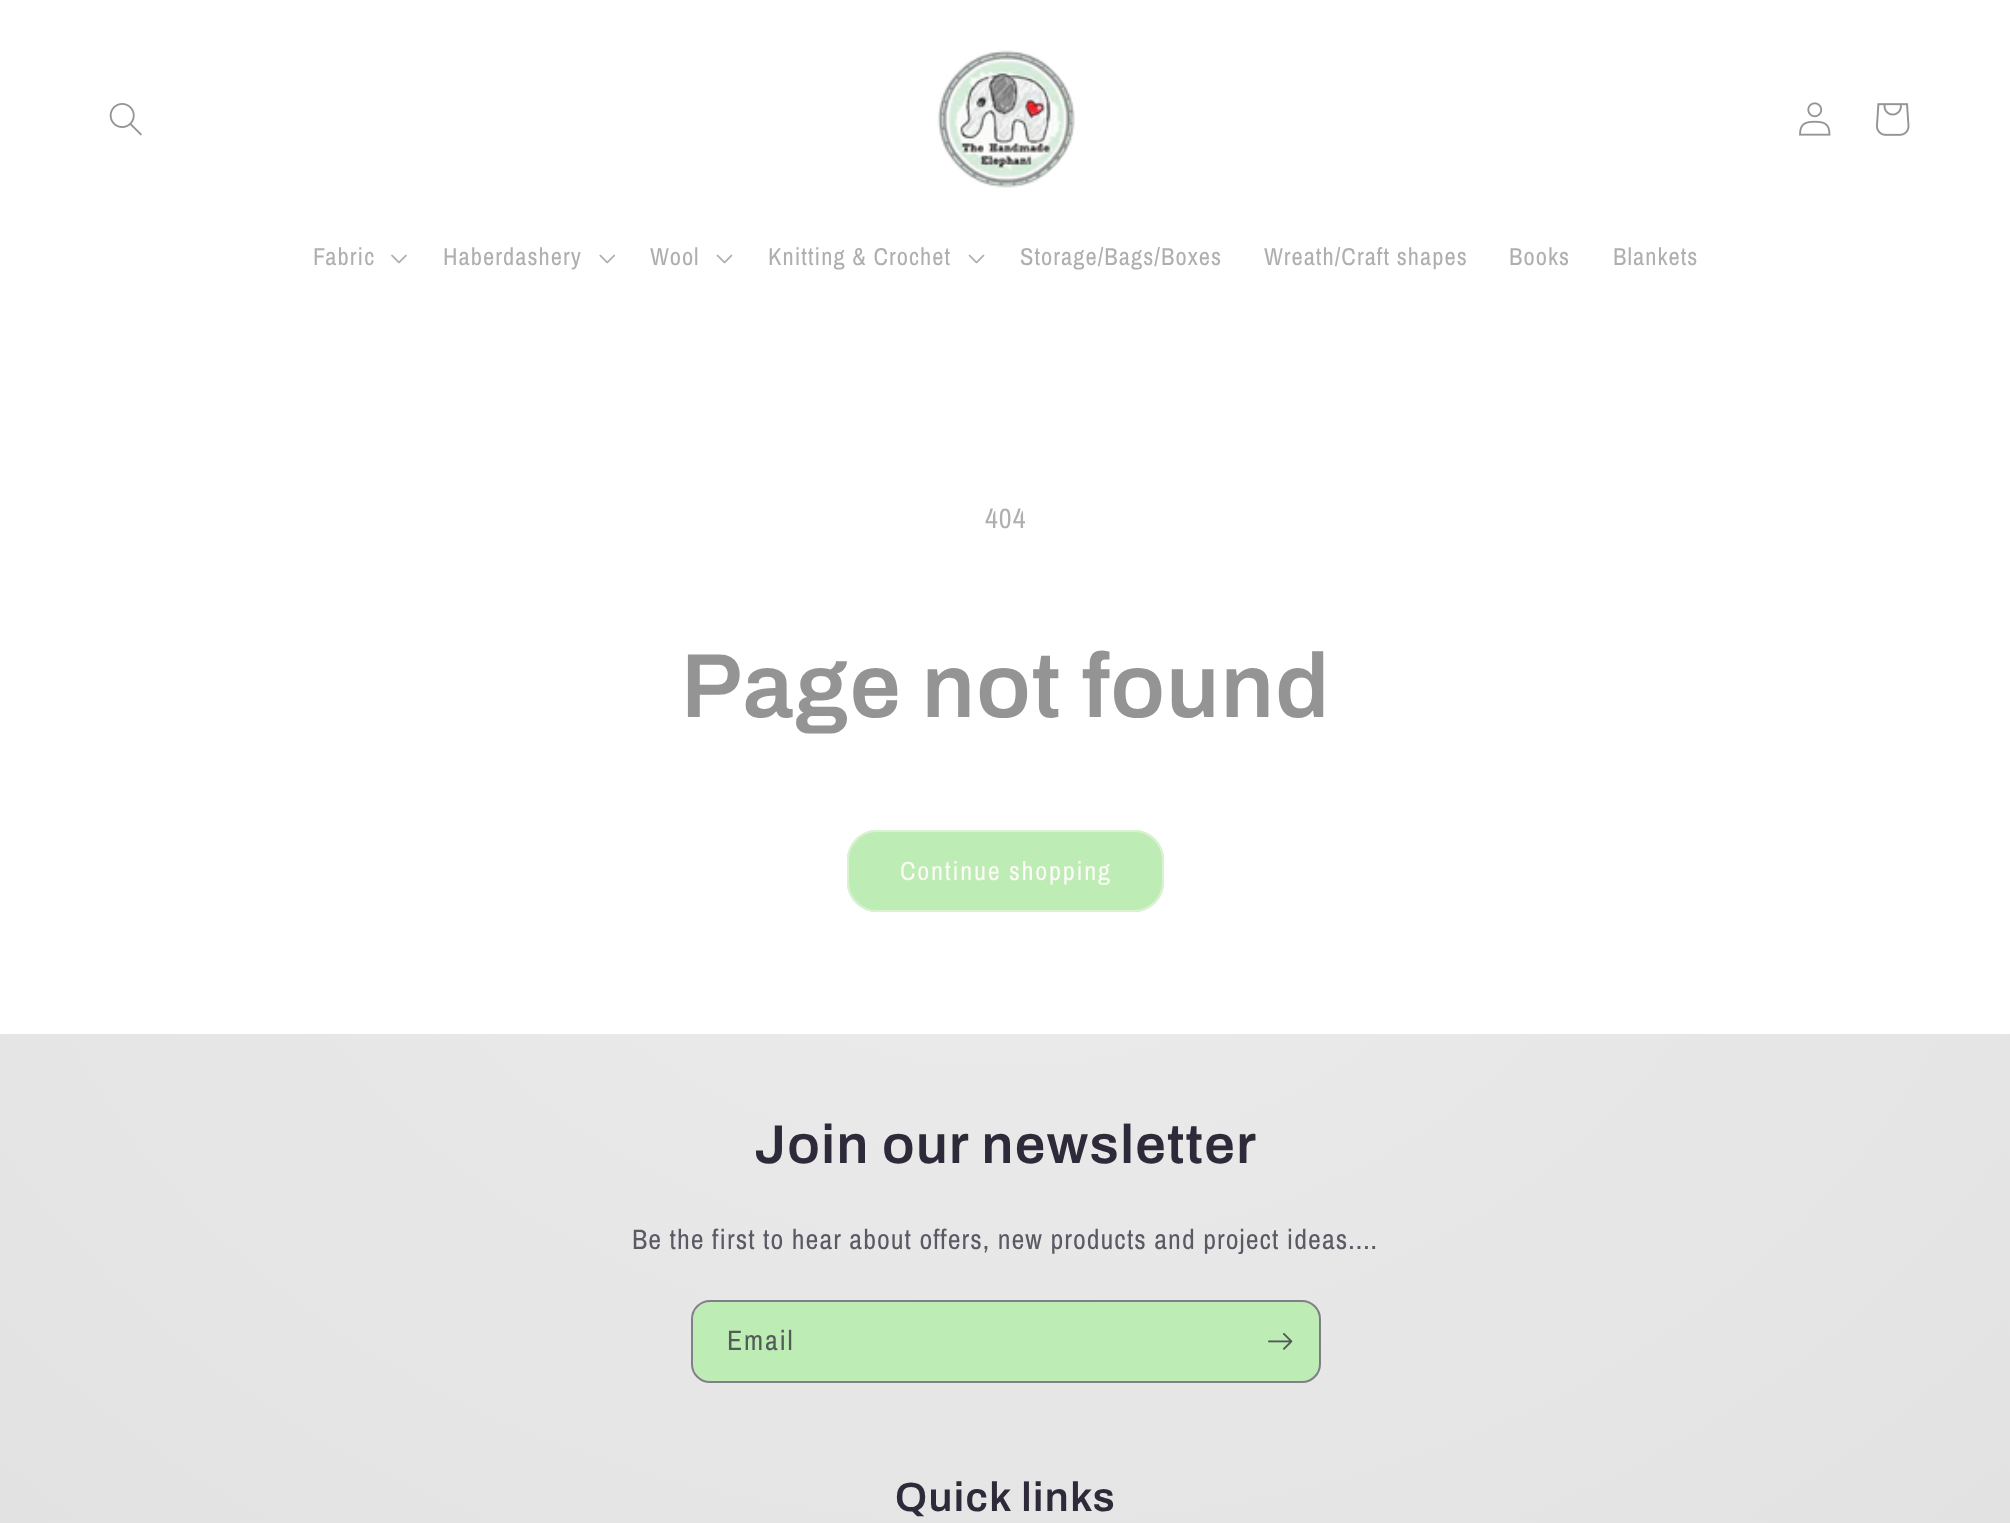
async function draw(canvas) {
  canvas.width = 2010
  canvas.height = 1523
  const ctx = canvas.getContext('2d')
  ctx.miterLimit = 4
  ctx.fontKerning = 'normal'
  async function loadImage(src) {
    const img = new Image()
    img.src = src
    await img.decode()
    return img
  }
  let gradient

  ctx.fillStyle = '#fff'
  ctx.fillRect(0, 0, 2010, 1523)
  ctx.drawImage(await loadImage('image0.png'), 109, 103, 33, 33)
  ctx.drawImage(await loadImage('image1.png'), 937, 50, 138, 138)
  ctx.drawImage(await loadImage('image2.png'), 1799, 102, 32, 34)
  ctx.drawImage(await loadImage('image3.png'), 1876, 103, 34, 33)
  ctx.letterSpacing = '1.05px'
  ctx.font = '24.5px Archivo Narrow'
  ctx.fillStyle = '#afafaf'
  ctx.fillText('Fabric', 313, 265)
  ctx.drawImage(await loadImage('image4.png'), 391, 254, 16, 10)
  ctx.fillText('Haberdashery', 443, 265)
  ctx.drawImage(await loadImage('image5.png'), 599, 254, 16, 10)
  ctx.fillText('Wool', 650, 265)
  ctx.drawImage(await loadImage('image6.png'), 716, 254, 17, 10)
  ctx.fillText('Knitting & Crochet', 768, 265)
  ctx.drawImage(await loadImage('image6.png'), 968, 254, 17, 10)
  ctx.fillText('Storage/Bags/Boxes', 1020, 265)
  ctx.fillText('Wreath/Craft shapes', 1264, 265)
  ctx.fillText('Books', 1509, 265)
  ctx.fillText('Blankets', 1613, 265)
  ctx.font = '28px Archivo Narrow'
  ctx.fillText('404', 985, 528)
  ctx.letterSpacing = '1.4px'
  ctx.font = '600 91px Archivo'
  ctx.fillStyle = '#949494'
  ctx.fillText('Page not found', 681, 717)
  ctx.fillStyle = '#beecb5'
  ctx.beginPath()
  ctx.roundRect(847, 830, 317, 82, 30)
  ctx.fill()
  ctx.beginPath()
  ctx.roundRect(848, 831, 315, 80, 29)
  ctx.strokeStyle = '#beecb5'
  ctx.lineWidth = 2
  ctx.stroke()
  ctx.beginPath()
  ctx.roundRect(848, 831, 315, 80, 29)
  ctx.strokeStyle = '#fdfbf773'
  ctx.stroke()
  ctx.letterSpacing = '1.75px'
  ctx.font = '26.25px Archivo Narrow'
  ctx.fillStyle = '#fdfbf7'
  ctx.fillText('Continue shopping', 900, 880)
  gradient = ctx.createRadialGradient(1005, 1005.16, 0, 1005, 1005.16, 1422)
  gradient.addColorStop(0.23, '#eaeaea')
  gradient.addColorStop(1, '#e2e2e2')
  gradient.addColorStop(1, '#fff')
  ctx.fillStyle = gradient
  ctx.beginPath()
  ctx.rect(0, 1034, 2010, 363)
  ctx.save()
  ctx.clip()
  ctx.scale(1, 1078 / 1422)
  ctx.fillRect(0, 0, 2010, 2010)
  ctx.restore()
  ctx.letterSpacing = '1.4px'
  ctx.font = '600 54.5px Archivo'
  ctx.fillStyle = '#2e2a39'
  ctx.fillText('Join our newsletter', 754, 1163)
  ctx.letterSpacing = '1.05px'
  ctx.font = '28px Archivo Narrow'
  ctx.fillStyle = '#5c5965'
  ctx.fillText('Be the first to hear about offers, new products and project ideas....', 632, 1249)
  ctx.fillStyle = '#beecb5'
  ctx.beginPath()
  ctx.roundRect(693, 1302, 627, 79, 18)
  ctx.fill()
  ctx.beginPath()
  ctx.roundRect(692, 1301, 628, 81, 18)
  ctx.strokeStyle = '#2e2a398c'
  ctx.stroke()
  ctx.letterSpacing = '1.75px'
  ctx.fillStyle = '#525b58'
  ctx.fillText('Email', 727, 1350)
  ctx.drawImage(await loadImage('image7.png'), 1268, 1333, 25, 17)
  gradient = ctx.createRadialGradient(1005, 1005.16, 0, 1005, 1005.16, 1422)
  gradient.addColorStop(0.23, '#eaeaea')
  gradient.addColorStop(1, '#e2e2e2')
  gradient.addColorStop(1, '#fff')
  ctx.fillStyle = gradient
  ctx.beginPath()
  ctx.rect(0, 1397, 2010, 126)
  ctx.save()
  ctx.clip()
  ctx.scale(1, 1078 / 1422)
  ctx.fillRect(0, 0, 2010, 2010)
  ctx.restore()
  ctx.letterSpacing = '1.4px'
  ctx.font = '600 41px Archivo'
  ctx.fillStyle = '#2e2a39'
  ctx.fillText('Quick links', 895, 1511)
}

draw(document.querySelector('canvas'))
